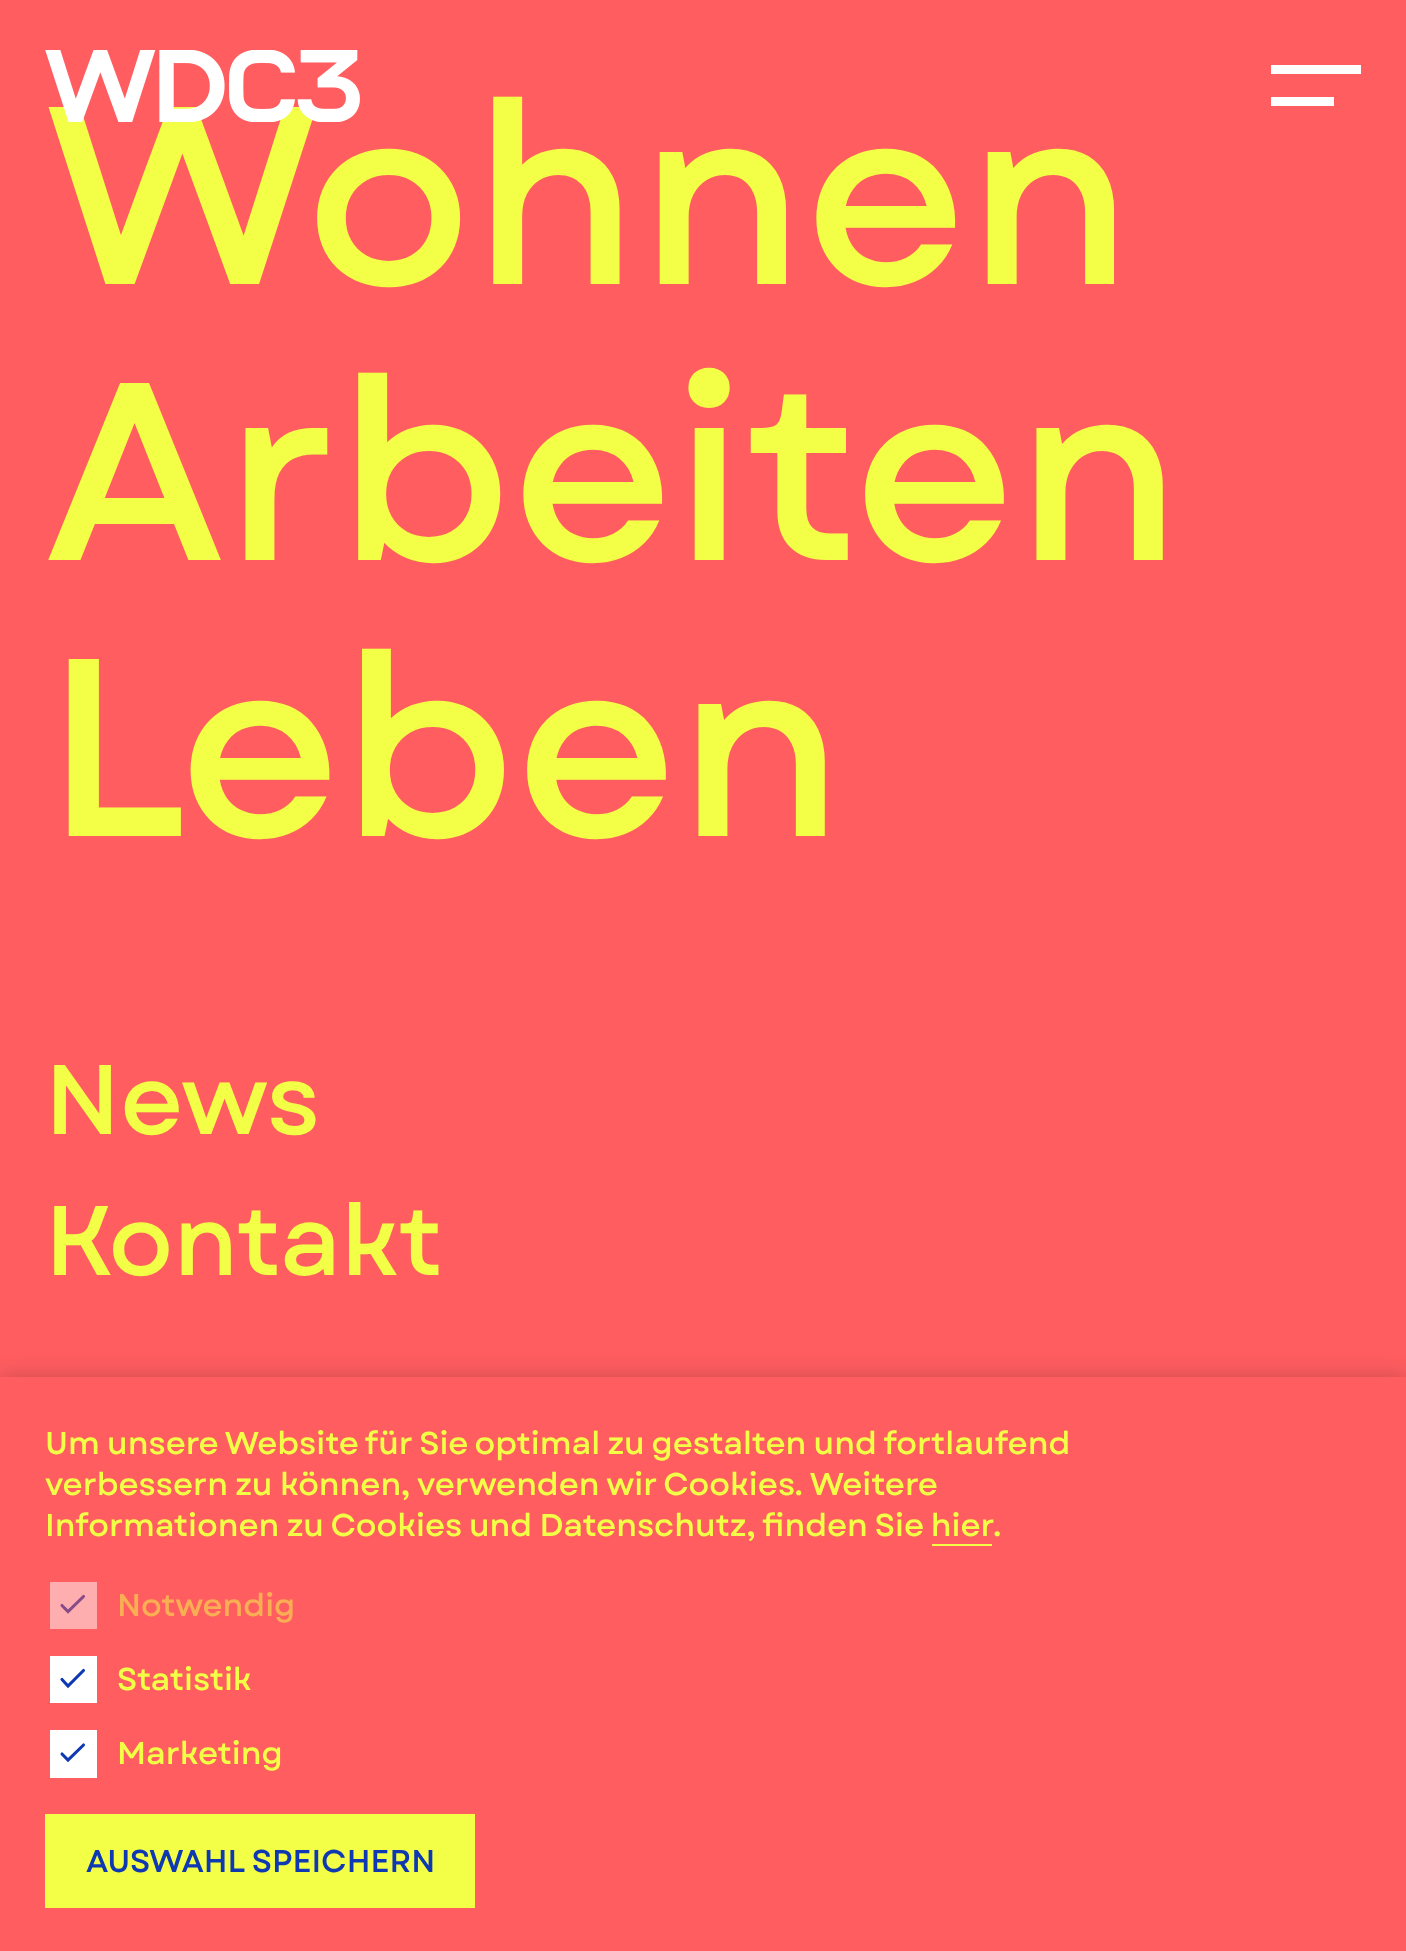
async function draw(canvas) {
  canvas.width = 1406
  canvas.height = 1951
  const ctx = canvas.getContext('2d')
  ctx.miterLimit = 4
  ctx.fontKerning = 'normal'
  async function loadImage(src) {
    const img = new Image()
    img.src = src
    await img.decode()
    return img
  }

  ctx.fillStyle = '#ff5d60'
  ctx.fillRect(0, 0, 1406, 1951)
  ctx.font = '500 253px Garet'
  ctx.fillStyle = '#f2ff46'
  ctx.fillText('Wohnen', 45, 284)
  ctx.drawImage(await loadImage('image0.png'), 45, 50, 315, 72)
  ctx.fillStyle = '#fff'
  ctx.fillRect(1271, 65, 90, 9)
  ctx.fillRect(1271, 97, 63, 9)
  ctx.fillStyle = '#f2ff46'
  ctx.fillText('Arbeiten', 45, 560)
  ctx.fillText('Leben', 45, 836)
  ctx.font = '500 98.5px Garet'
  ctx.fillText('News', 45, 1134)
  ctx.fillText('Kontakt', 45, 1275)
  ctx.fillStyle = '#00000033'
  ctx.filter = 'blur(11px)'
  ctx.beginPath()
  ctx.rect(0, 1377, 1406, 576)
  ctx.fill()
  ctx.filter = 'none'
  ctx.fillStyle = '#ff5d60'
  ctx.fillRect(0, 1377, 1406, 574)
  ctx.font = '500 31.5px Garet'
  ctx.fillStyle = '#f2ff46'
  ctx.fillText('Um unsere Website für Sie optimal zu gestalten und fortlaufend', 45, 1454)
  ctx.fillText('verbessern zu können, verwenden wir Cookies. Weitere', 45, 1495)
  ctx.fillText('Informationen zu Cookies und Datenschutz, finden Sie hier', 45, 1536)
  ctx.fillText('.', 993, 1536)
  ctx.fillRect(932, 1544, 60, 2)
  ctx.fillStyle = '#ffaeb0'
  ctx.fillRect(50, 1582, 47, 47)
  ctx.beginPath()
  ctx.moveTo(62, 1605.5)
  ctx.lineTo(68, 1611.5)
  ctx.lineTo(83.5, 1596.5)
  ctx.strokeStyle = '#874b8a'
  ctx.lineWidth = 3.1
  ctx.lineCap = 'round'
  ctx.stroke()
  ctx.fillStyle = '#f9ae53'
  ctx.fillText('Notwendig', 117, 1616)
  ctx.fillStyle = '#fff'
  ctx.fillRect(50, 1656, 47, 47)
  ctx.beginPath()
  ctx.moveTo(62, 1679.5)
  ctx.lineTo(68, 1686)
  ctx.lineTo(83.5, 1670.5)
  ctx.strokeStyle = '#0f38b3'
  ctx.stroke()
  ctx.fillStyle = '#f2ff46'
  ctx.fillText('Statistik', 117, 1690)
  ctx.fillStyle = '#fff'
  ctx.fillRect(50, 1730, 47, 48)
  ctx.beginPath()
  ctx.moveTo(62, 1754)
  ctx.lineTo(68, 1760)
  ctx.lineTo(83.5, 1745)
  ctx.stroke()
  ctx.fillStyle = '#f2ff46'
  ctx.fillText('Marketing', 117, 1764)
  ctx.fillRect(45, 1814, 430, 94)
  ctx.fillStyle = '#0f38b3'
  ctx.fillText('AUSWAHL SPEICHERN', 86, 1872)
}

draw(document.querySelector('canvas'))
